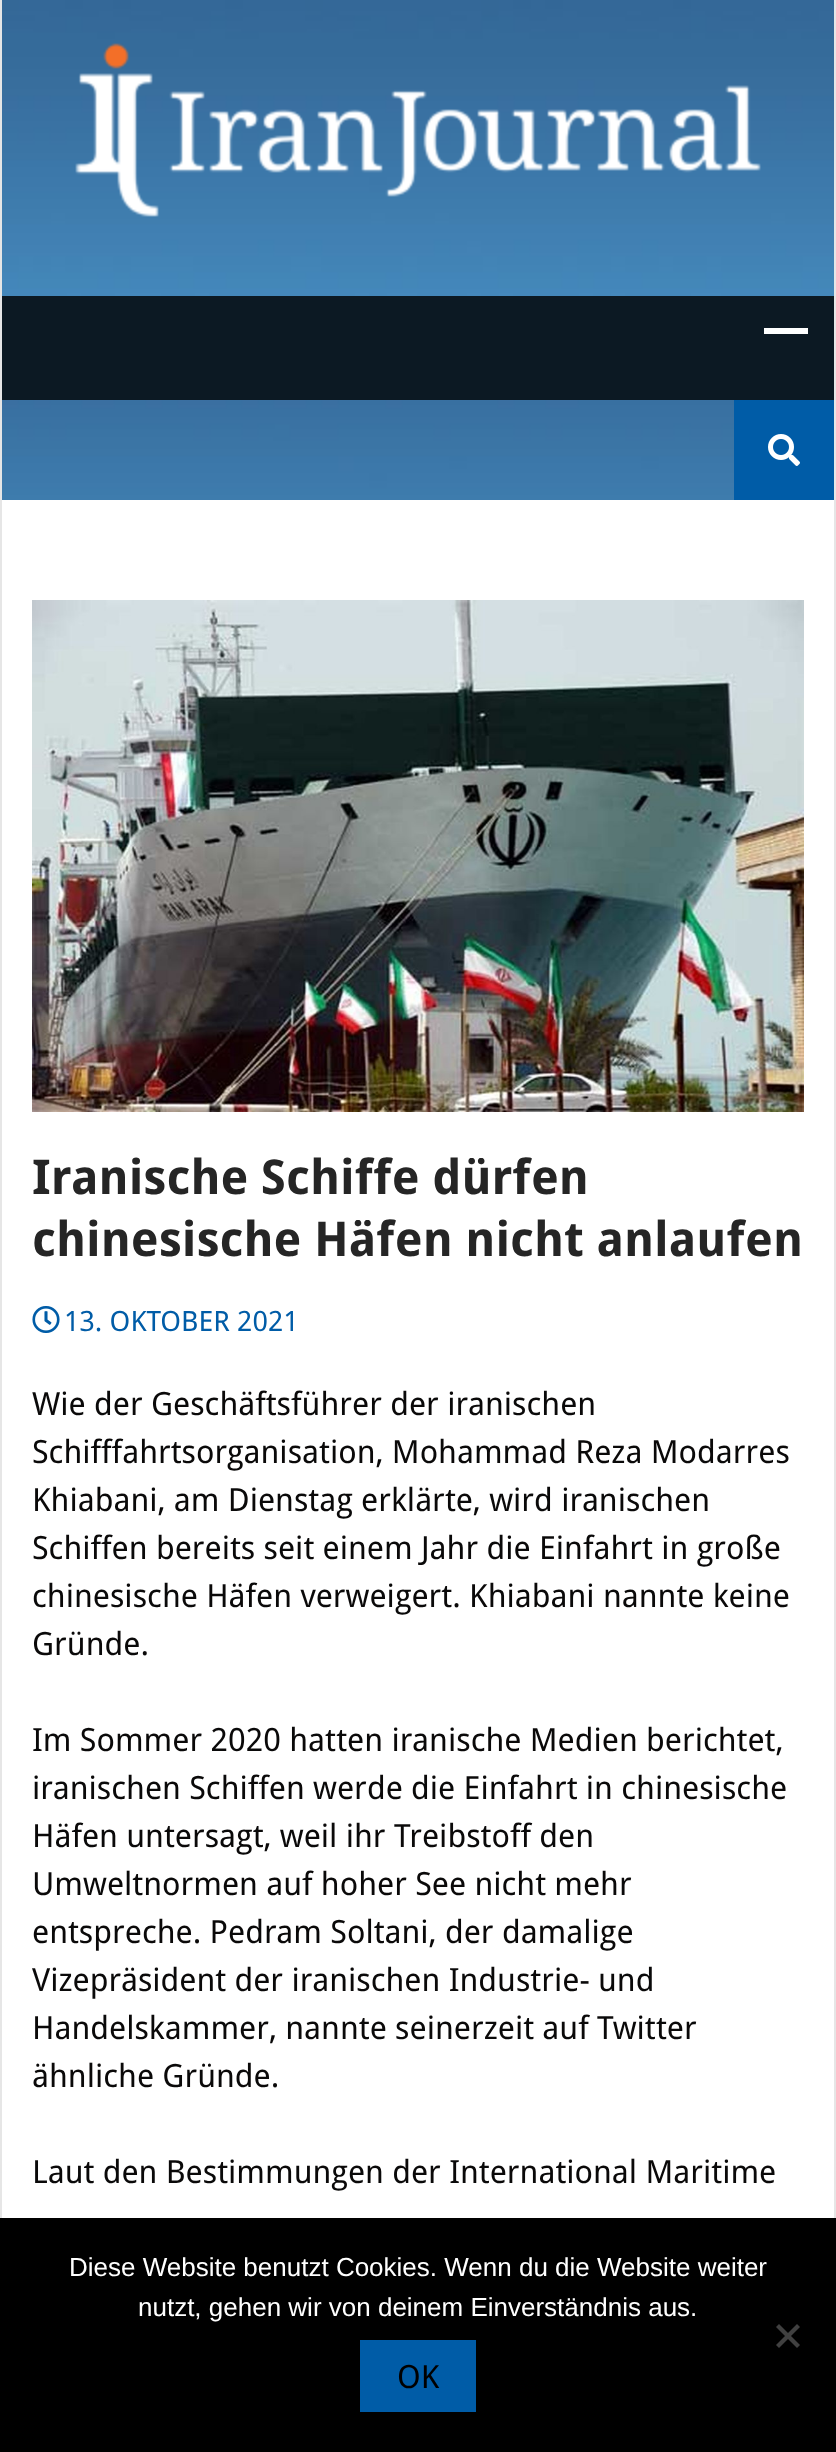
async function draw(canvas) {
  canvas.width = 836
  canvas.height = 2452
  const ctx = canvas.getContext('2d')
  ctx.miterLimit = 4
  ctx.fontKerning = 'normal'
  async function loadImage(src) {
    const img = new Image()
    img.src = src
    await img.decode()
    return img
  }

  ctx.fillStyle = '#fff'
  ctx.fillRect(0, 0, 836, 2452)
  ctx.fillStyle = '#e6e6e6'
  ctx.fillRect(834, 0, 2, 2218)
  ctx.fillRect(0, 0, 2, 2218)
  ctx.drawImage(await loadImage('image0.png'), 2, 0, 832, 296)
  ctx.drawImage(await loadImage('image1.png'), 75, 43, 686, 174)
  ctx.drawImage(await loadImage('image2.png'), 2, 400, 732, 100)
  ctx.fillStyle = '#0c1923'
  ctx.fillRect(2, 296, 832, 104)
  ctx.fillStyle = '#fff'
  ctx.fillRect(764, 328, 44, 6)
  ctx.fillStyle = '#005ca7'
  ctx.fillRect(734, 400, 100, 100)
  ctx.drawImage(await loadImage('image3.png'), 768, 434, 32, 32)
  ctx.drawImage(await loadImage('image4.png'), 32, 600, 772, 512)
  ctx.font = 'bold 48px Droid Sans'
  ctx.fillStyle = '#252525'
  ctx.fillText('Iranische Schiffe dürfen', 32, 1194)
  ctx.fillText('chinesische Häfen nicht anlaufen', 32, 1256)
  ctx.drawImage(await loadImage('image5.png'), 32, 1306, 28, 27)
  ctx.font = '28px Droid Sans'
  ctx.fillStyle = '#005ca7'
  ctx.fillText('13. OKTOBER 2021', 64, 1331)
  ctx.font = '32px Droid Sans'
  ctx.fillStyle = '#0a0909'
  ctx.fillText('Wie der Geschäftsführer der iranischen', 32, 1415)
  ctx.fillText('Schifffahrtsorganisation, Mohammad Reza Modarres', 32, 1463)
  ctx.fillText('Khiabani, am Dienstag erklärte, wird iranischen', 32, 1511)
  ctx.fillText('Schiffen bereits seit einem Jahr die Einfahrt in große', 32, 1559)
  ctx.fillText('chinesische Häfen verweigert. Khiabani nannte keine', 32, 1607)
  ctx.fillText('Gründe.', 32, 1655)
  ctx.fillText('Im Sommer 2020 hatten iranische Medien berichtet,', 32, 1751)
  ctx.fillText('iranischen Schiffen werde die Einfahrt in chinesische', 32, 1799)
  ctx.fillText('Häfen untersagt, weil ihr Treibstoff den', 32, 1847)
  ctx.fillText('Umweltnormen auf hoher See nicht mehr', 32, 1895)
  ctx.fillText('entspreche. Pedram Soltani, der damalige', 32, 1943)
  ctx.fillText('Vizepräsident der iranischen Industrie- und', 32, 1991)
  ctx.fillText('Handelskammer, nannte seinerzeit auf Twitter', 32, 2039)
  ctx.fillText('ähnliche Gründe.', 32, 2087)
  ctx.fillText('Laut den Bestimmungen der International Maritime', 32, 2183)
  ctx.fillStyle = '#000'
  ctx.fillRect(0, 2218, 836, 234)
  ctx.font = '26px Liberation Sans'
  ctx.fillStyle = '#fff'
  ctx.fillText('Diese Website benutzt Cookies. Wenn du die Website weiter', 69, 2276)
  ctx.fillText('nutzt, gehen wir von deinem Einverständnis aus.', 138, 2316)
  ctx.fillStyle = '#404040'
  ctx.beginPath()
  ctx.moveTo(797, 2324)
  ctx.lineTo(800, 2327)
  ctx.lineTo(779, 2348)
  ctx.lineTo(776, 2345)
  ctx.closePath()
  ctx.fill()
  ctx.beginPath()
  ctx.moveTo(776, 2327)
  ctx.lineTo(779, 2324)
  ctx.lineTo(800, 2345)
  ctx.lineTo(797, 2348)
  ctx.closePath()
  ctx.fill()
  ctx.fillStyle = '#005ca7'
  ctx.fillRect(360, 2340, 116, 72)
  ctx.font = '32px Droid Sans'
  ctx.fillStyle = '#000'
  ctx.fillText('OK', 397, 2388)
}

draw(document.querySelector('canvas'))
